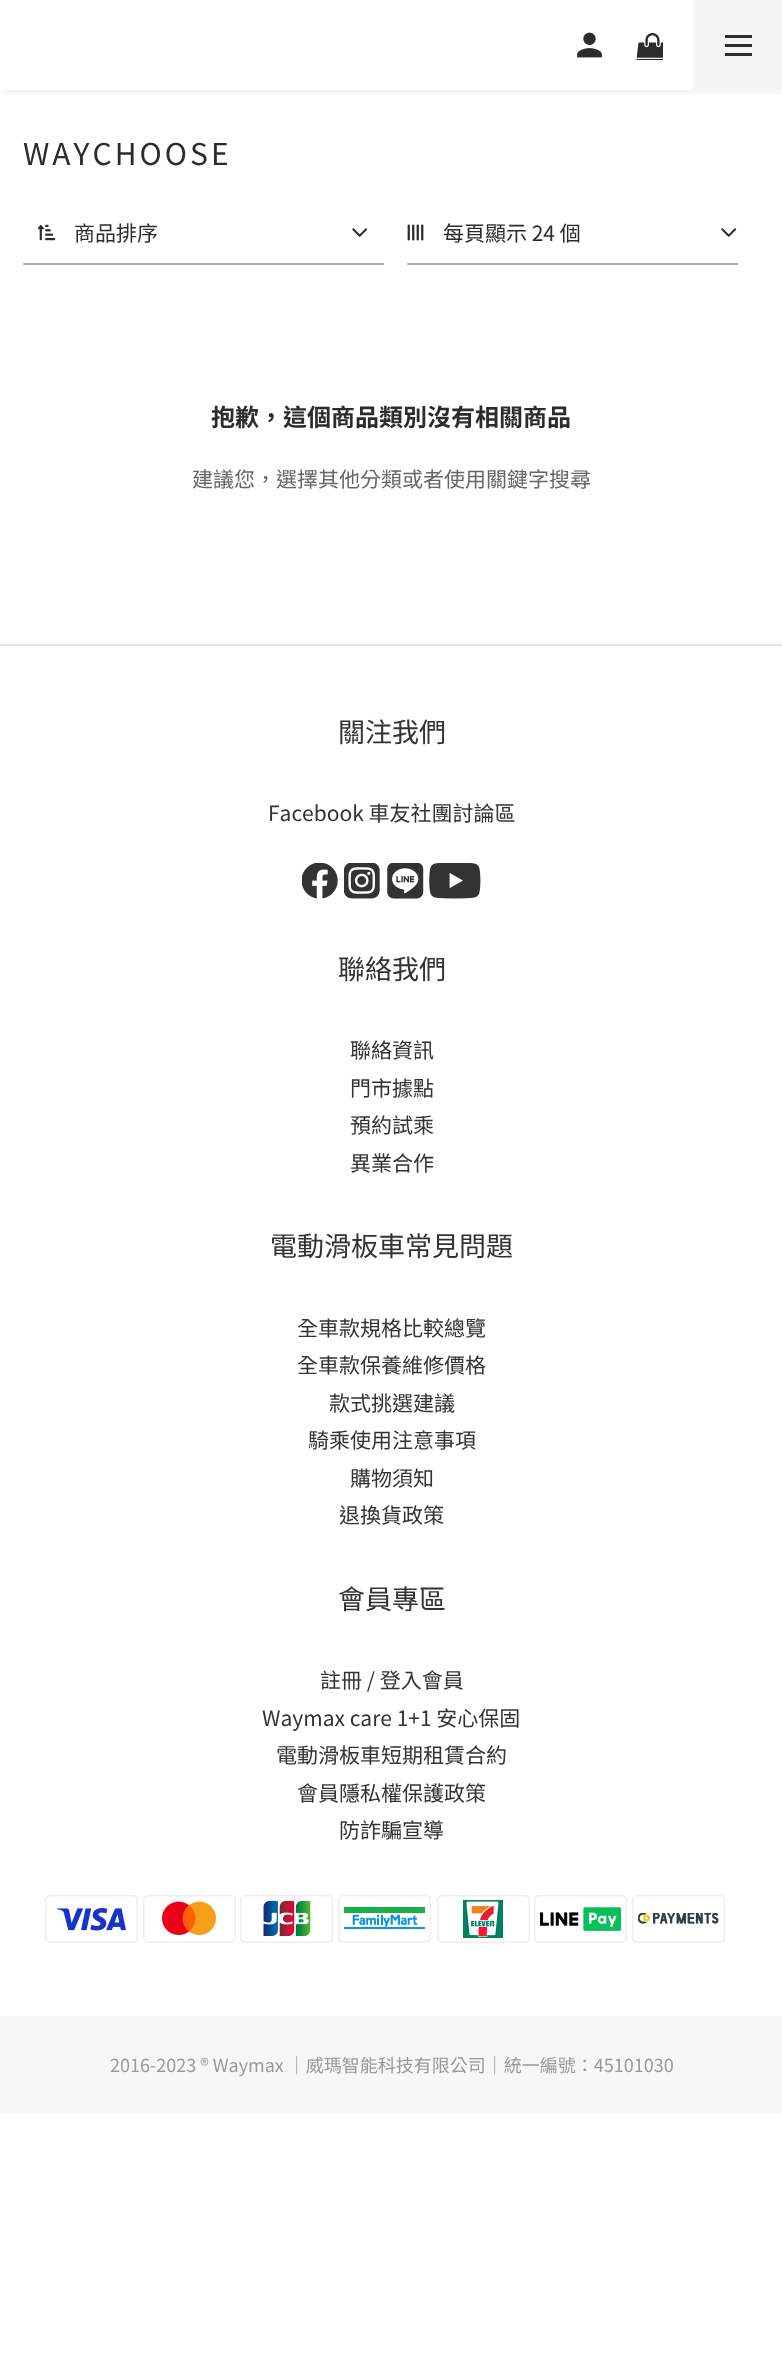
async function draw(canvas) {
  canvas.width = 782
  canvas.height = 2377
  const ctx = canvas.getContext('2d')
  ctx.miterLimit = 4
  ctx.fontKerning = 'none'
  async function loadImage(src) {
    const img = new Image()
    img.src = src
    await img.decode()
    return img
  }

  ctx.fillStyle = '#fff'
  ctx.fillRect(0, 0, 782, 2377)
  ctx.save()
  ctx.beginPath()
  ctx.rect(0, 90, 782, 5)
  ctx.clip()
  ctx.fillStyle = '#0000000f'
  ctx.filter = 'blur(4.5px)'
  ctx.beginPath()
  ctx.rect(0, 3, 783, 90)
  ctx.fill()
  ctx.filter = 'none'
  ctx.restore()
  ctx.drawImage(await loadImage('image0.png'), 577, 32, 25, 26)
  ctx.drawImage(await loadImage('image1.png'), 636, 33, 27, 27)
  ctx.fillStyle = '#f5f5f5'
  ctx.fillRect(693, 0, 89, 90)
  ctx.fillStyle = '#2c2c2c'
  ctx.fillRect(725, 44, 27, 3)
  ctx.fillRect(725, 35, 27, 3)
  ctx.fillRect(725, 53, 27, 3)
  ctx.letterSpacing = '3px'
  ctx.font = '30px Noto Sans TC'
  ctx.fillText('WAYCHOOSE', 23, 165)
  ctx.fillStyle = '#adadad'
  ctx.fillRect(23, 263, 361, 2)
  ctx.drawImage(await loadImage('image2.png'), 38, 224, 18, 17)
  ctx.letterSpacing = '0px'
  ctx.font = '21px Noto Sans TC'
  ctx.fillStyle = '#2c2c2c'
  ctx.fillText('商品排序', 74, 241)
  ctx.drawImage(await loadImage('image3.png'), 352, 228, 16, 9)
  ctx.fillStyle = '#adadad'
  ctx.fillRect(407, 263, 331, 2)
  ctx.drawImage(await loadImage('image4.png'), 407, 224, 17, 17)
  ctx.fillStyle = '#2c2c2c'
  ctx.fillText('每頁顯示 24 個', 443, 241)
  ctx.drawImage(await loadImage('image3.png'), 721, 228, 16, 9)
  ctx.font = 'bold 24px Noto Sans TC'
  ctx.fillText('抱歉，這個商品類別沒有相關商品', 211, 426)
  ctx.font = '21px Noto Sans TC'
  ctx.fillStyle = '#666'
  ctx.fillText('建議您，選擇其他分類或者使用關鍵字搜尋', 192, 487)
  ctx.fillStyle = '#e6e6e6'
  ctx.fillRect(0, 644, 782, 2)
  ctx.font = '27px Noto Sans TC'
  ctx.fillStyle = '#333'
  ctx.fillText('關注我們', 338, 742)
  ctx.font = '21px Noto Sans TC'
  ctx.fillText('Facebook 車友社團討論區', 268, 821)
  ctx.drawImage(await loadImage('image5.png'), 302, 863, 36, 36)
  ctx.drawImage(await loadImage('image6.png'), 344, 863, 36, 36)
  ctx.drawImage(await loadImage('image7.png'), 387, 863, 37, 36)
  ctx.drawImage(await loadImage('image8.png'), 429, 863, 52, 36)
  ctx.font = '27px Noto Sans TC'
  ctx.fillText('聯絡我們', 338, 979)
  ctx.font = '21px Noto Sans TC'
  ctx.fillText('聯絡資訊', 350, 1058)
  ctx.fillText('門市據點', 350, 1096)
  ctx.fillText('預約試乘', 350, 1133)
  ctx.fillText('異業合作', 350, 1171)
  ctx.font = '27px Noto Sans TC'
  ctx.fillText('電動滑板車常見問題', 270, 1256)
  ctx.font = '21px Noto Sans TC'
  ctx.fillText('全車款規格比較總覽', 297, 1336)
  ctx.fillText('全車款保養維修價格', 297, 1373)
  ctx.fillText('款式挑選建議', 329, 1411)
  ctx.fillText('騎乘使用注意事項', 308, 1448)
  ctx.fillText('購物須知', 350, 1486)
  ctx.fillText('退換貨政策', 339, 1523)
  ctx.font = '27px Noto Sans TC'
  ctx.fillText('會員專區', 338, 1609)
  ctx.font = '21px Noto Sans TC'
  ctx.fillText('註冊 / 登入會員', 320, 1688)
  ctx.fillText('Waymax care 1+1 安心保固', 262, 1726)
  ctx.fillText('電動滑板車短期租賃合約', 276, 1763)
  ctx.fillText('會員隱私權保護政策', 297, 1801)
  ctx.fillText('防詐騙宣導', 339, 1838)
  ctx.drawImage(await loadImage('image9.png'), 45, 1895, 93, 48)
  ctx.drawImage(await loadImage('image10.png'), 143, 1895, 93, 48)
  ctx.drawImage(await loadImage('image11.png'), 240, 1895, 93, 48)
  ctx.drawImage(await loadImage('image12.png'), 338, 1895, 93, 48)
  ctx.drawImage(await loadImage('image13.png'), 437, 1895, 93, 48)
  ctx.drawImage(await loadImage('image14.png'), 534, 1895, 93, 48)
  ctx.drawImage(await loadImage('image15.png'), 632, 1895, 93, 48)
  ctx.fillStyle = '#f7f7f7'
  ctx.fillRect(0, 2016, 782, 98)
  ctx.font = '18px Noto Sans TC'
  ctx.fillStyle = '#999'
  ctx.fillText('2016-2023 ® Waymax ｜威瑪智能科技有限公司｜統一編號：45101030', 110, 2072)
}

draw(document.querySelector('canvas'))
